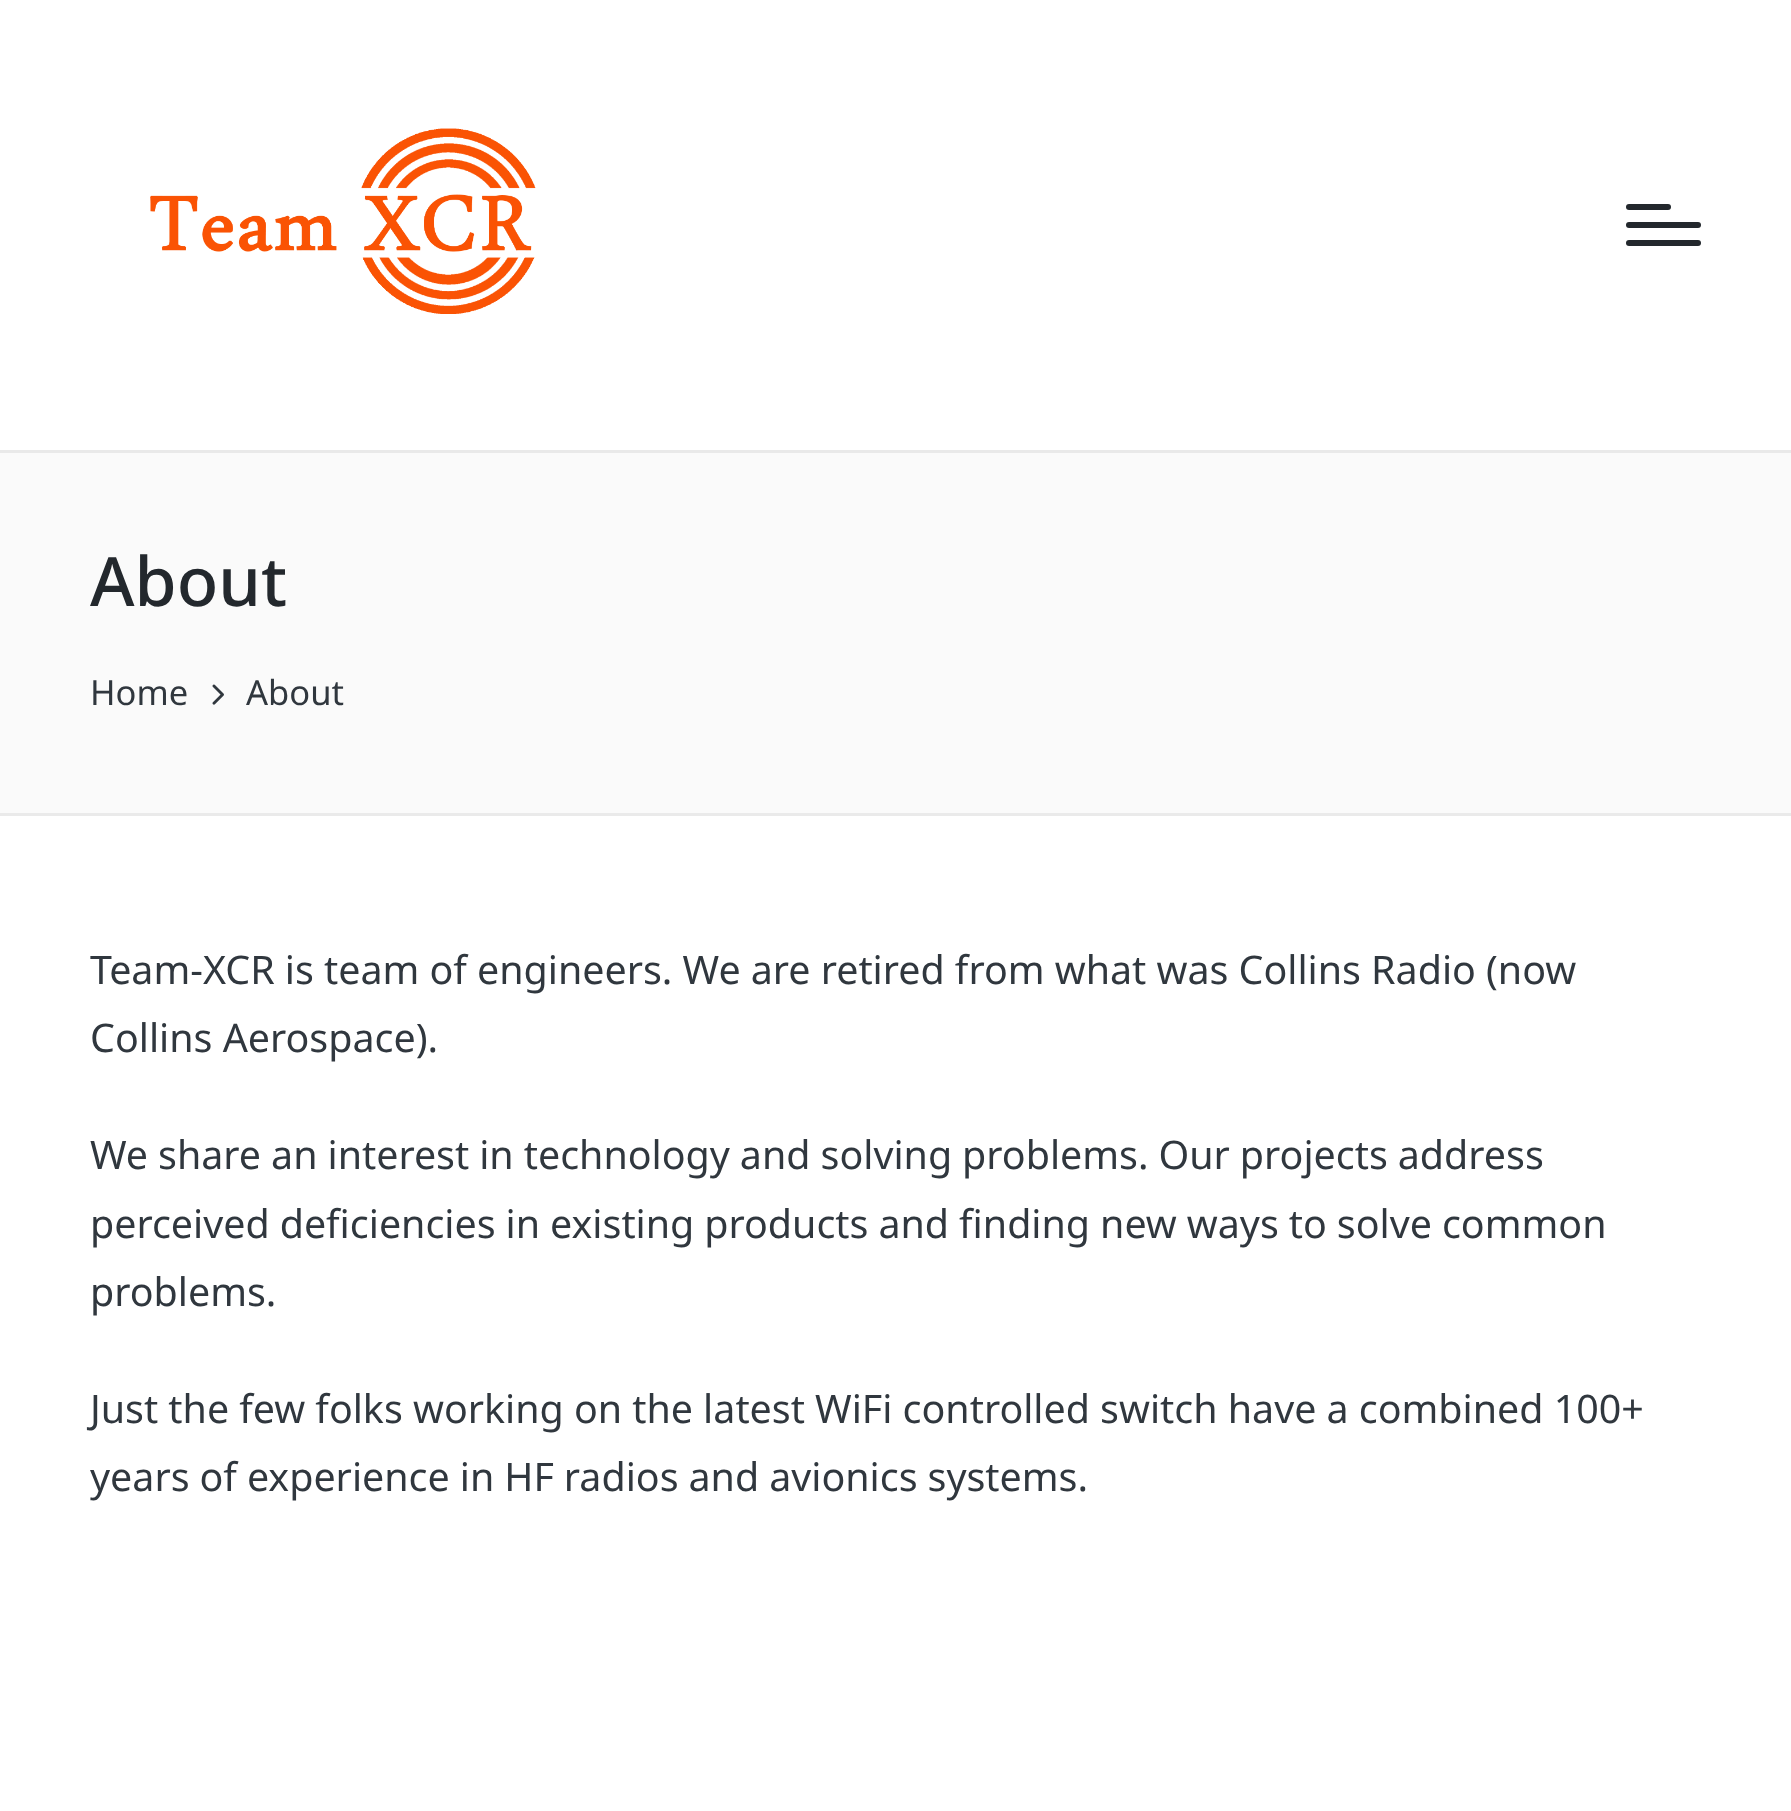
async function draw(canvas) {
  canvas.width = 1791
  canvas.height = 1811
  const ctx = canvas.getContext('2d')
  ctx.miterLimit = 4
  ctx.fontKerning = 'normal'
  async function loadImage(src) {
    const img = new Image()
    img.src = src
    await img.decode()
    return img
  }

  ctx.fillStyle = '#fff'
  ctx.fillRect(0, 0, 1791, 1811)
  ctx.fillStyle = '#e9e9e9'
  ctx.fillRect(0, 450, 1791, 3)
  ctx.drawImage(await loadImage('image0.png'), 150, 128, 386, 186)
  ctx.fillStyle = '#23282d'
  ctx.beginPath()
  ctx.roundRect(1626, 222, 75, 6, 3)
  ctx.fill()
  ctx.beginPath()
  ctx.roundRect(1626, 204, 45, 6, 3)
  ctx.fill()
  ctx.beginPath()
  ctx.roundRect(1626, 240, 75, 6, 3)
  ctx.fill()
  ctx.fillStyle = '#fafafa'
  ctx.fillRect(0, 453, 1791, 360)
  ctx.fillStyle = '#eaeaea'
  ctx.fillRect(0, 813, 1791, 3)
  ctx.font = '500 68px Noto Sans'
  ctx.fillStyle = '#23282d'
  ctx.fillText('About', 90, 606)
  ctx.font = '34.5px Noto Sans'
  ctx.fillStyle = '#30373e'
  ctx.fillText('Home', 90, 705)
  ctx.drawImage(await loadImage('image1.png'), 212, 684, 12, 21)
  ctx.fillText('About', 246, 705)
  ctx.wordSpacing = '-0.1px'
  ctx.font = '39.4px Noto Sans'
  ctx.fillText('Team-XCR is team of engineers. We are retired from what was Collins Radio (now', 90, 984)
  ctx.wordSpacing = '0px'
  ctx.fillText('Collins Aerospace).', 90, 1052)
  ctx.wordSpacing = '-0.25px'
  ctx.fillText('We share an interest in technology and solving problems. Our projects address', 90, 1169)
  ctx.fillText('perceived deficiencies in existing products and finding new ways to solve common', 90, 1238)
  ctx.wordSpacing = '0px'
  ctx.fillText('problems.', 90, 1306)
  ctx.wordSpacing = '-0.1px'
  ctx.fillText('Just the few folks working on the latest WiFi controlled switch have a combined 100+', 90, 1423)
  ctx.wordSpacing = '-0.25px'
  ctx.fillText('years of experience in HF radios and avionics systems.', 90, 1491)
}

draw(document.querySelector('canvas'))
